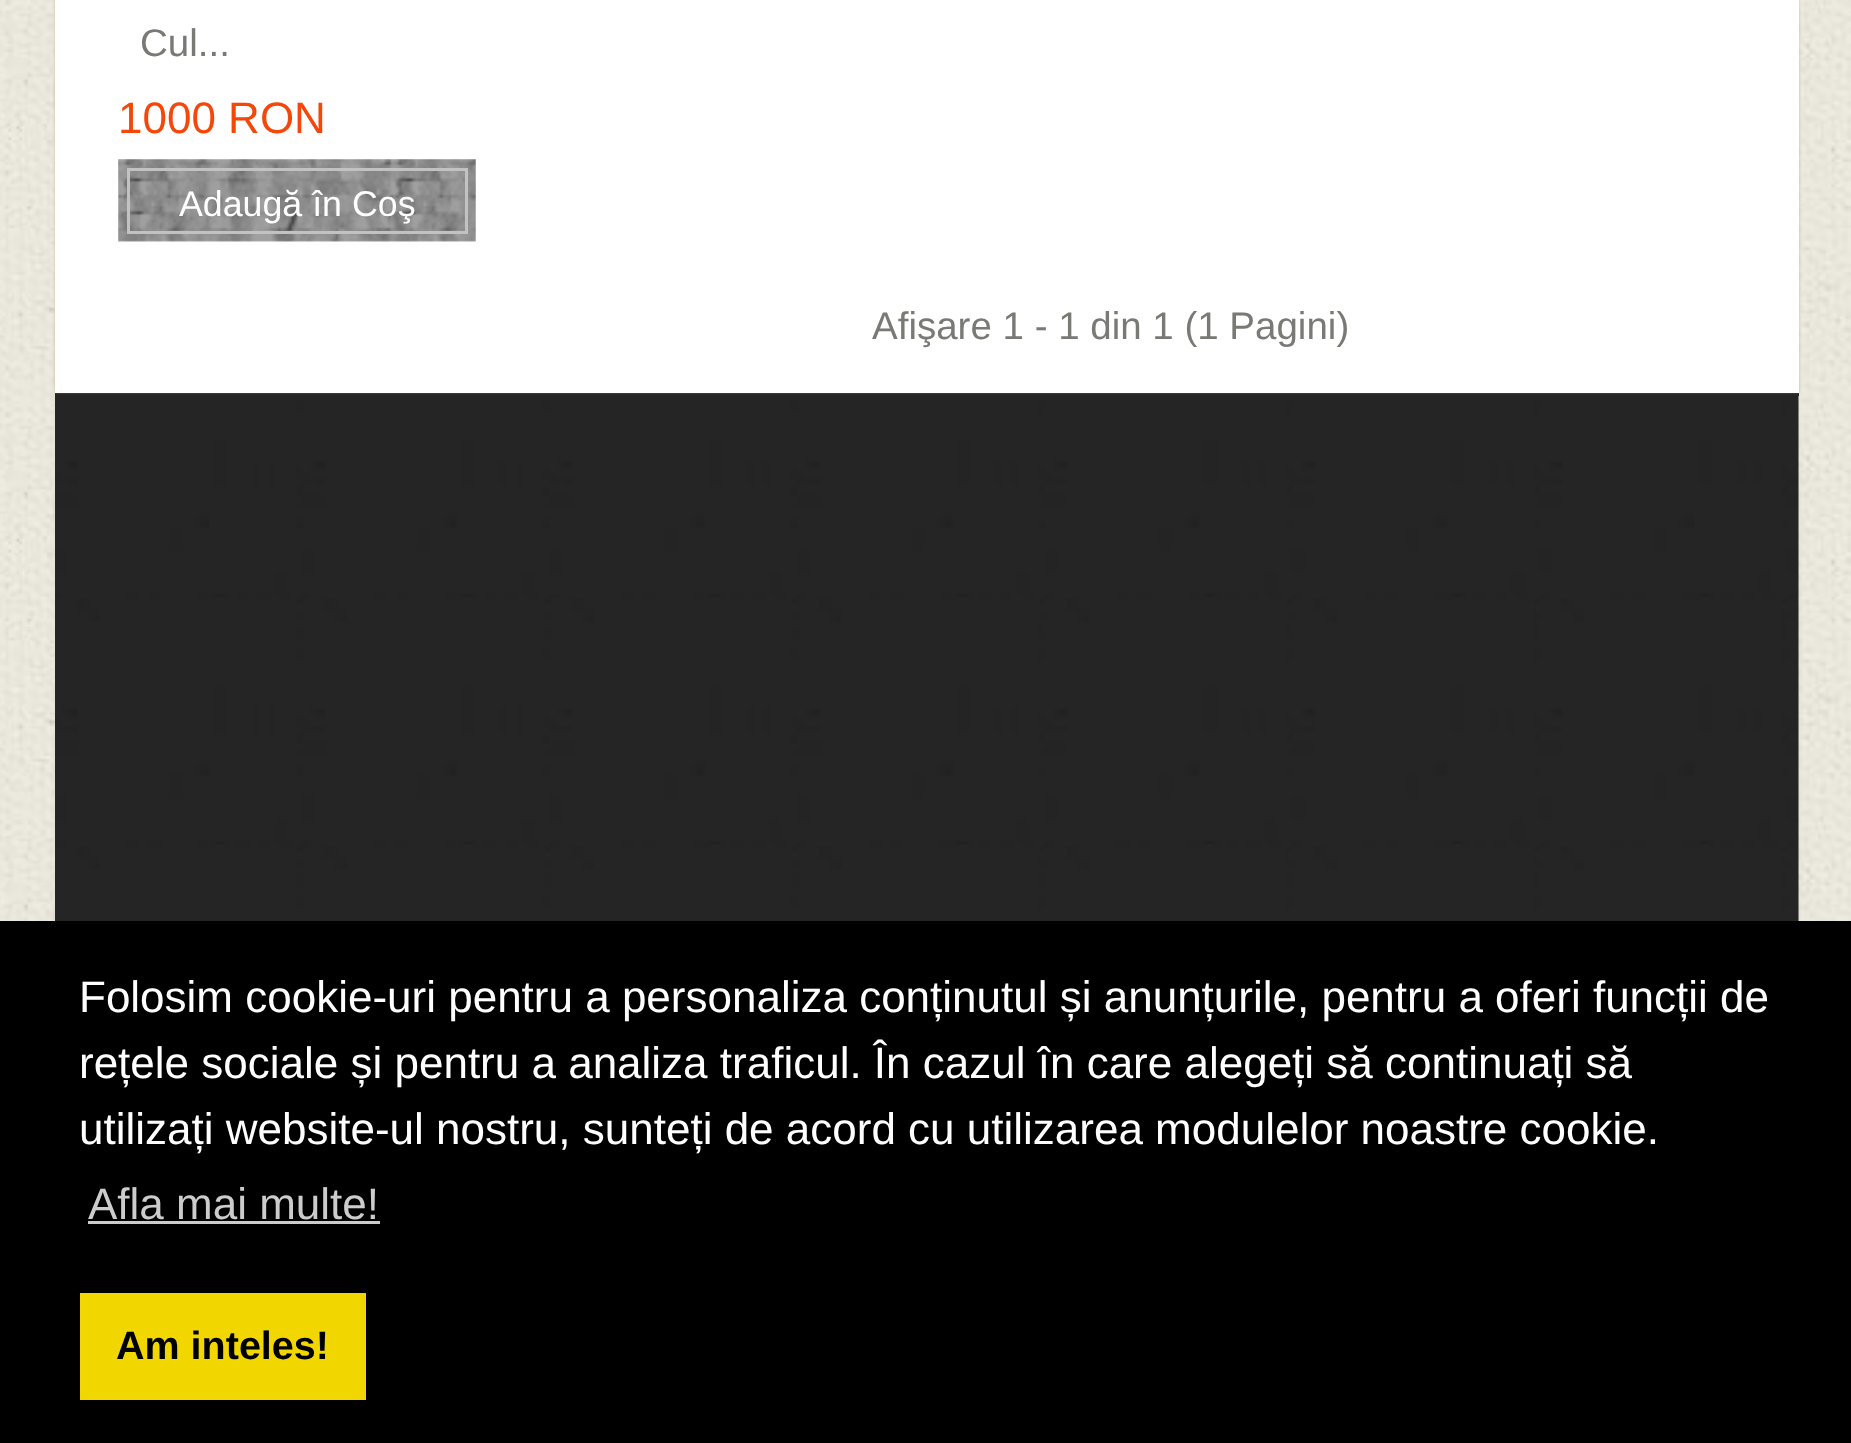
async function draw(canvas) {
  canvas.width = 1851
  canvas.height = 1443
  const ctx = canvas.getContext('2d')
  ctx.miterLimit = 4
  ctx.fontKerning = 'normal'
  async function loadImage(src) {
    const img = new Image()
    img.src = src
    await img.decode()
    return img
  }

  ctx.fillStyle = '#fff'
  ctx.fillRect(0, 0, 1851, 1443)
  ctx.drawImage(await loadImage('image0.png'), 0, 0, 1851, 921)
  ctx.fillStyle = '#444'
  ctx.filter = 'blur(8px)'
  ctx.beginPath()
  ctx.rect(69, 396, 1716, 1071)
  ctx.fill()
  ctx.filter = 'none'
  ctx.drawImage(await loadImage('image2.png'), 55, 396, 1744, 525)
  ctx.fillStyle = '#232323'
  ctx.fillRect(55, 393, 1744, 3)
  ctx.fillStyle = '#b3906480'
  ctx.filter = 'blur(1.5px)'
  ctx.beginPath()
  ctx.rect(55, -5, 1744, 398)
  ctx.fill()
  ctx.filter = 'none'
  ctx.fillStyle = '#fff'
  ctx.fillRect(55, 0, 1744, 393)
  ctx.font = '38.5px Liberation Sans'
  ctx.fillStyle = '#797975'
  ctx.fillText('Cul...', 140, 56)
  ctx.font = '44px Liberation Sans'
  ctx.fillStyle = '#f6470a'
  ctx.fillText('1000 RON', 118, 133)
  ctx.drawImage(await loadImage('image1.png'), 118, 159, 358, 83)
  ctx.strokeStyle = '#c2c2c2'
  ctx.lineWidth = 3
  ctx.strokeRect(128.5, 169.5, 338, 63)
  ctx.font = '35.75px Liberation Sans'
  ctx.fillStyle = '#fff'
  ctx.fillText('Adaugă în Coş', 179, 216)
  ctx.font = '38.5px Liberation Sans'
  ctx.fillStyle = '#797975'
  ctx.fillText('Afişare 1 - 1 din 1 (1 Pagini)', 872, 339)
  ctx.fillStyle = '#000'
  ctx.fillRect(0, 921, 1851, 522)
  ctx.font = '44px Liberation Sans'
  ctx.fillStyle = '#fff'
  ctx.fillText('Folosim cookie-uri pentru a personaliza conținutul și anunțurile, pentru a oferi funcții de', 79, 1012)
  ctx.fillText('rețele sociale și pentru a analiza traficul. În cazul în care alegeți să continuați să', 79, 1078)
  ctx.fillText('utilizați website-ul nostru, sunteți de acord cu utilizarea modulelor noastre cookie.', 79, 1144)
  ctx.fillStyle = '#ccc'
  ctx.fillText('Afla mai multe!', 88, 1219)
  ctx.fillRect(88, 1221, 292, 3)
  ctx.fillStyle = '#f1d600'
  ctx.fillRect(80, 1293, 286, 107)
  ctx.font = 'bold 39.5px Liberation Sans'
  ctx.fillStyle = '#000'
  ctx.fillText('Am inteles!', 116, 1359)
}

draw(document.querySelector('canvas'))
